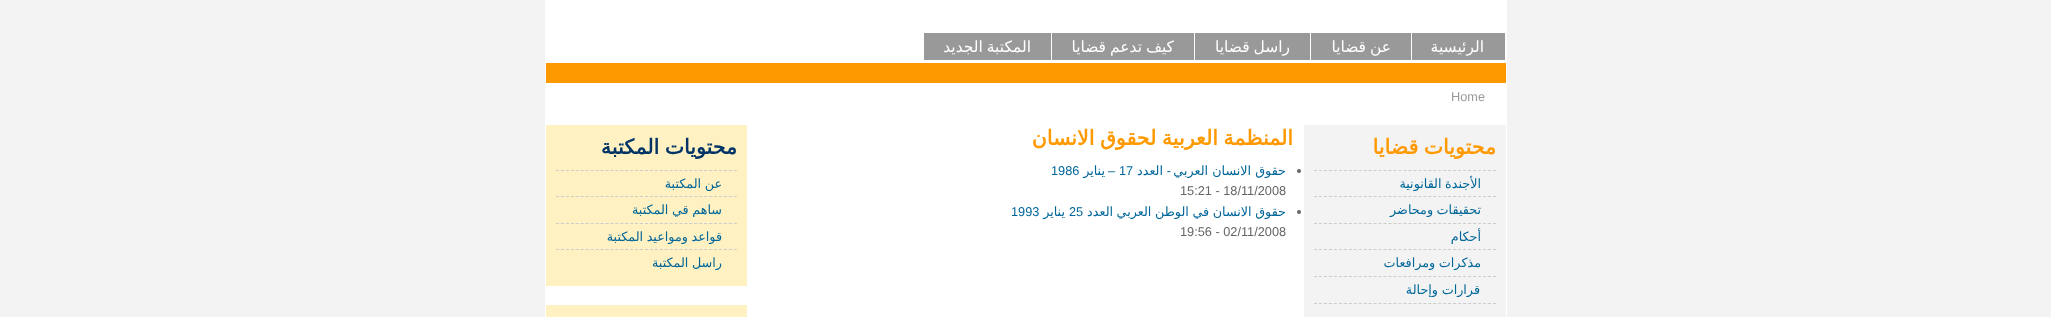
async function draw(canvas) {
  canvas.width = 2051
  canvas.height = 317
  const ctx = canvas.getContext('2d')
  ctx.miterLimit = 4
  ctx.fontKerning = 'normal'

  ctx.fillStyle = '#f3f3f3'
  ctx.fillRect(0, 0, 2051, 317)
  ctx.fillStyle = '#fff'
  ctx.fillRect(545, 0, 962, 317)
  ctx.fillStyle = '#999'
  ctx.fillRect(1412, 33, 93, 27)
  ctx.direction = 'rtl'
  ctx.font = '15.5px DejaVu Sans'
  ctx.fillStyle = '#fff'
  ctx.fillText('الرئيسية', 1484, 52)
  ctx.fillStyle = '#999'
  ctx.fillRect(1311, 33, 100, 27)
  ctx.wordSpacing = '-1px'
  ctx.fillStyle = '#fff'
  ctx.fillText('عن قضايا', 1391, 52)
  ctx.fillStyle = '#999'
  ctx.fillRect(1195, 33, 115, 27)
  ctx.fillStyle = '#fff'
  ctx.fillText('راسل قضايا', 1290, 52)
  ctx.fillStyle = '#999'
  ctx.fillRect(1052, 33, 142, 27)
  ctx.fillStyle = '#fff'
  ctx.fillText('كيف تدعم قضايا', 1174, 52)
  ctx.fillStyle = '#999'
  ctx.fillRect(924, 33, 127, 27)
  ctx.fillStyle = '#fff'
  ctx.fillText('المكتبة الجديد', 1031, 52)
  ctx.fillStyle = '#f90'
  ctx.fillRect(546, 63, 960, 20)
  ctx.wordSpacing = '0px'
  ctx.direction = 'ltr'
  ctx.font = '12.75px Liberation Sans'
  ctx.fillStyle = '#999'
  ctx.fillText('Home', 1451, 101)
  ctx.fillStyle = '#f3f3f3'
  ctx.fillRect(1304, 125, 202, 192)
  ctx.wordSpacing = '-1px'
  ctx.direction = 'rtl'
  ctx.font = 'bold 20.5px DejaVu Sans'
  ctx.fillStyle = '#f90'
  ctx.fillText('محتويات قضايا', 1496, 154)
  ctx.beginPath()
  ctx.moveTo(1314, 170.5)
  ctx.lineTo(1496, 170.5)
  ctx.strokeStyle = '#ccc'
  ctx.setLineDash([3, 1.97])
  ctx.stroke()
  ctx.wordSpacing = '-0.5px'
  ctx.font = '12.75px DejaVu Sans'
  ctx.fillStyle = '#069'
  ctx.fillText('الأجندة القانونية', 1481, 188)
  ctx.beginPath()
  ctx.moveTo(1314, 196.5)
  ctx.lineTo(1496, 196.5)
  ctx.stroke()
  ctx.fillText('تحقيقات ومحاضر', 1481, 214)
  ctx.beginPath()
  ctx.moveTo(1314, 223.5)
  ctx.lineTo(1496, 223.5)
  ctx.stroke()
  ctx.wordSpacing = '0px'
  ctx.fillText('أحكام', 1481, 241)
  ctx.beginPath()
  ctx.moveTo(1314, 249.5)
  ctx.lineTo(1496, 249.5)
  ctx.stroke()
  ctx.wordSpacing = '-0.5px'
  ctx.fillText('مذكرات ومرافعات', 1481, 267)
  ctx.beginPath()
  ctx.moveTo(1314, 276.5)
  ctx.lineTo(1496, 276.5)
  ctx.stroke()
  ctx.wordSpacing = '0px'
  ctx.fillText('قرارات', 1480, 294)
  ctx.fillText('وإحالة', 1438, 294)
  ctx.beginPath()
  ctx.moveTo(1314, 303.5)
  ctx.lineTo(1496, 303.5)
  ctx.stroke()
  ctx.wordSpacing = '-1px'
  ctx.font = 'bold 20.5px DejaVu Sans'
  ctx.fillStyle = '#f90'
  ctx.fillText('المنظمة العربية لحقوق الانسان', 1293, 145)
  ctx.fillStyle = '#666'
  ctx.beginPath()
  ctx.arc(1299, 171, 2, 0, 2 * Math.PI)
  ctx.fill()
  ctx.wordSpacing = '0px'
  ctx.font = '12.75px DejaVu Sans'
  ctx.fillStyle = '#069'
  ctx.fillText('حقوق اﻻنسان العربي', 1286, 175)
  ctx.font = '12.75px Liberation Sans'
  ctx.fillText('-', 1171, 175)
  ctx.font = '12.75px DejaVu Sans'
  ctx.fillText('العدد', 1163, 175)
  ctx.direction = 'ltr'
  ctx.font = '12.75px Liberation Sans'
  ctx.fillText('17', 1119, 175)
  ctx.direction = 'rtl'
  ctx.fillText('–', 1115, 175)
  ctx.font = '12.75px DejaVu Sans'
  ctx.fillText('يناير', 1105, 175)
  ctx.direction = 'ltr'
  ctx.font = '12.75px Liberation Sans'
  ctx.fillText('1986', 1051, 175)
  ctx.fillStyle = '#666'
  ctx.fillText('15:21 - 18/11/2008', 1180, 195)
  ctx.beginPath()
  ctx.arc(1299, 212, 2, 0, 2 * Math.PI)
  ctx.fill()
  ctx.wordSpacing = '-0.5px'
  ctx.direction = 'rtl'
  ctx.font = '12.75px DejaVu Sans'
  ctx.fillStyle = '#069'
  ctx.fillText('حقوق اﻻنسان في الوطن العربي العدد', 1286, 216)
  ctx.wordSpacing = '0px'
  ctx.direction = 'ltr'
  ctx.font = '12.75px Liberation Sans'
  ctx.fillText('25', 1069, 216)
  ctx.direction = 'rtl'
  ctx.font = '12.75px DejaVu Sans'
  ctx.fillText('يناير', 1065, 216)
  ctx.direction = 'ltr'
  ctx.font = '12.75px Liberation Sans'
  ctx.fillText('1993', 1011, 216)
  ctx.fillStyle = '#666'
  ctx.fillText('19:56 - 02/11/2008', 1180, 236)
  ctx.fillStyle = '#fff1c1'
  ctx.fillRect(546, 125, 201, 161)
  ctx.wordSpacing = '-1px'
  ctx.direction = 'rtl'
  ctx.font = 'bold 20.5px DejaVu Sans'
  ctx.fillStyle = '#036'
  ctx.fillText('محتويات المكتبة', 737, 154)
  ctx.beginPath()
  ctx.moveTo(556, 170.5)
  ctx.lineTo(737, 170.5)
  ctx.setLineDash([3, 1.94])
  ctx.stroke()
  ctx.wordSpacing = '-0.5px'
  ctx.font = '12.75px DejaVu Sans'
  ctx.fillStyle = '#069'
  ctx.fillText('عن المكتبة', 722, 188)
  ctx.beginPath()
  ctx.moveTo(556, 196.5)
  ctx.lineTo(737, 196.5)
  ctx.stroke()
  ctx.fillText('ساهم قي المكتبة', 722, 214)
  ctx.beginPath()
  ctx.moveTo(556, 223.5)
  ctx.lineTo(737, 223.5)
  ctx.stroke()
  ctx.fillText('قواعد ومواعيد المكتبة', 722, 241)
  ctx.beginPath()
  ctx.moveTo(556, 249.5)
  ctx.lineTo(737, 249.5)
  ctx.stroke()
  ctx.fillText('راسل المكتبة', 722, 267)
  ctx.fillStyle = '#fff1c1'
  ctx.fillRect(546, 305, 201, 12)
}

draw(document.querySelector('canvas'))
